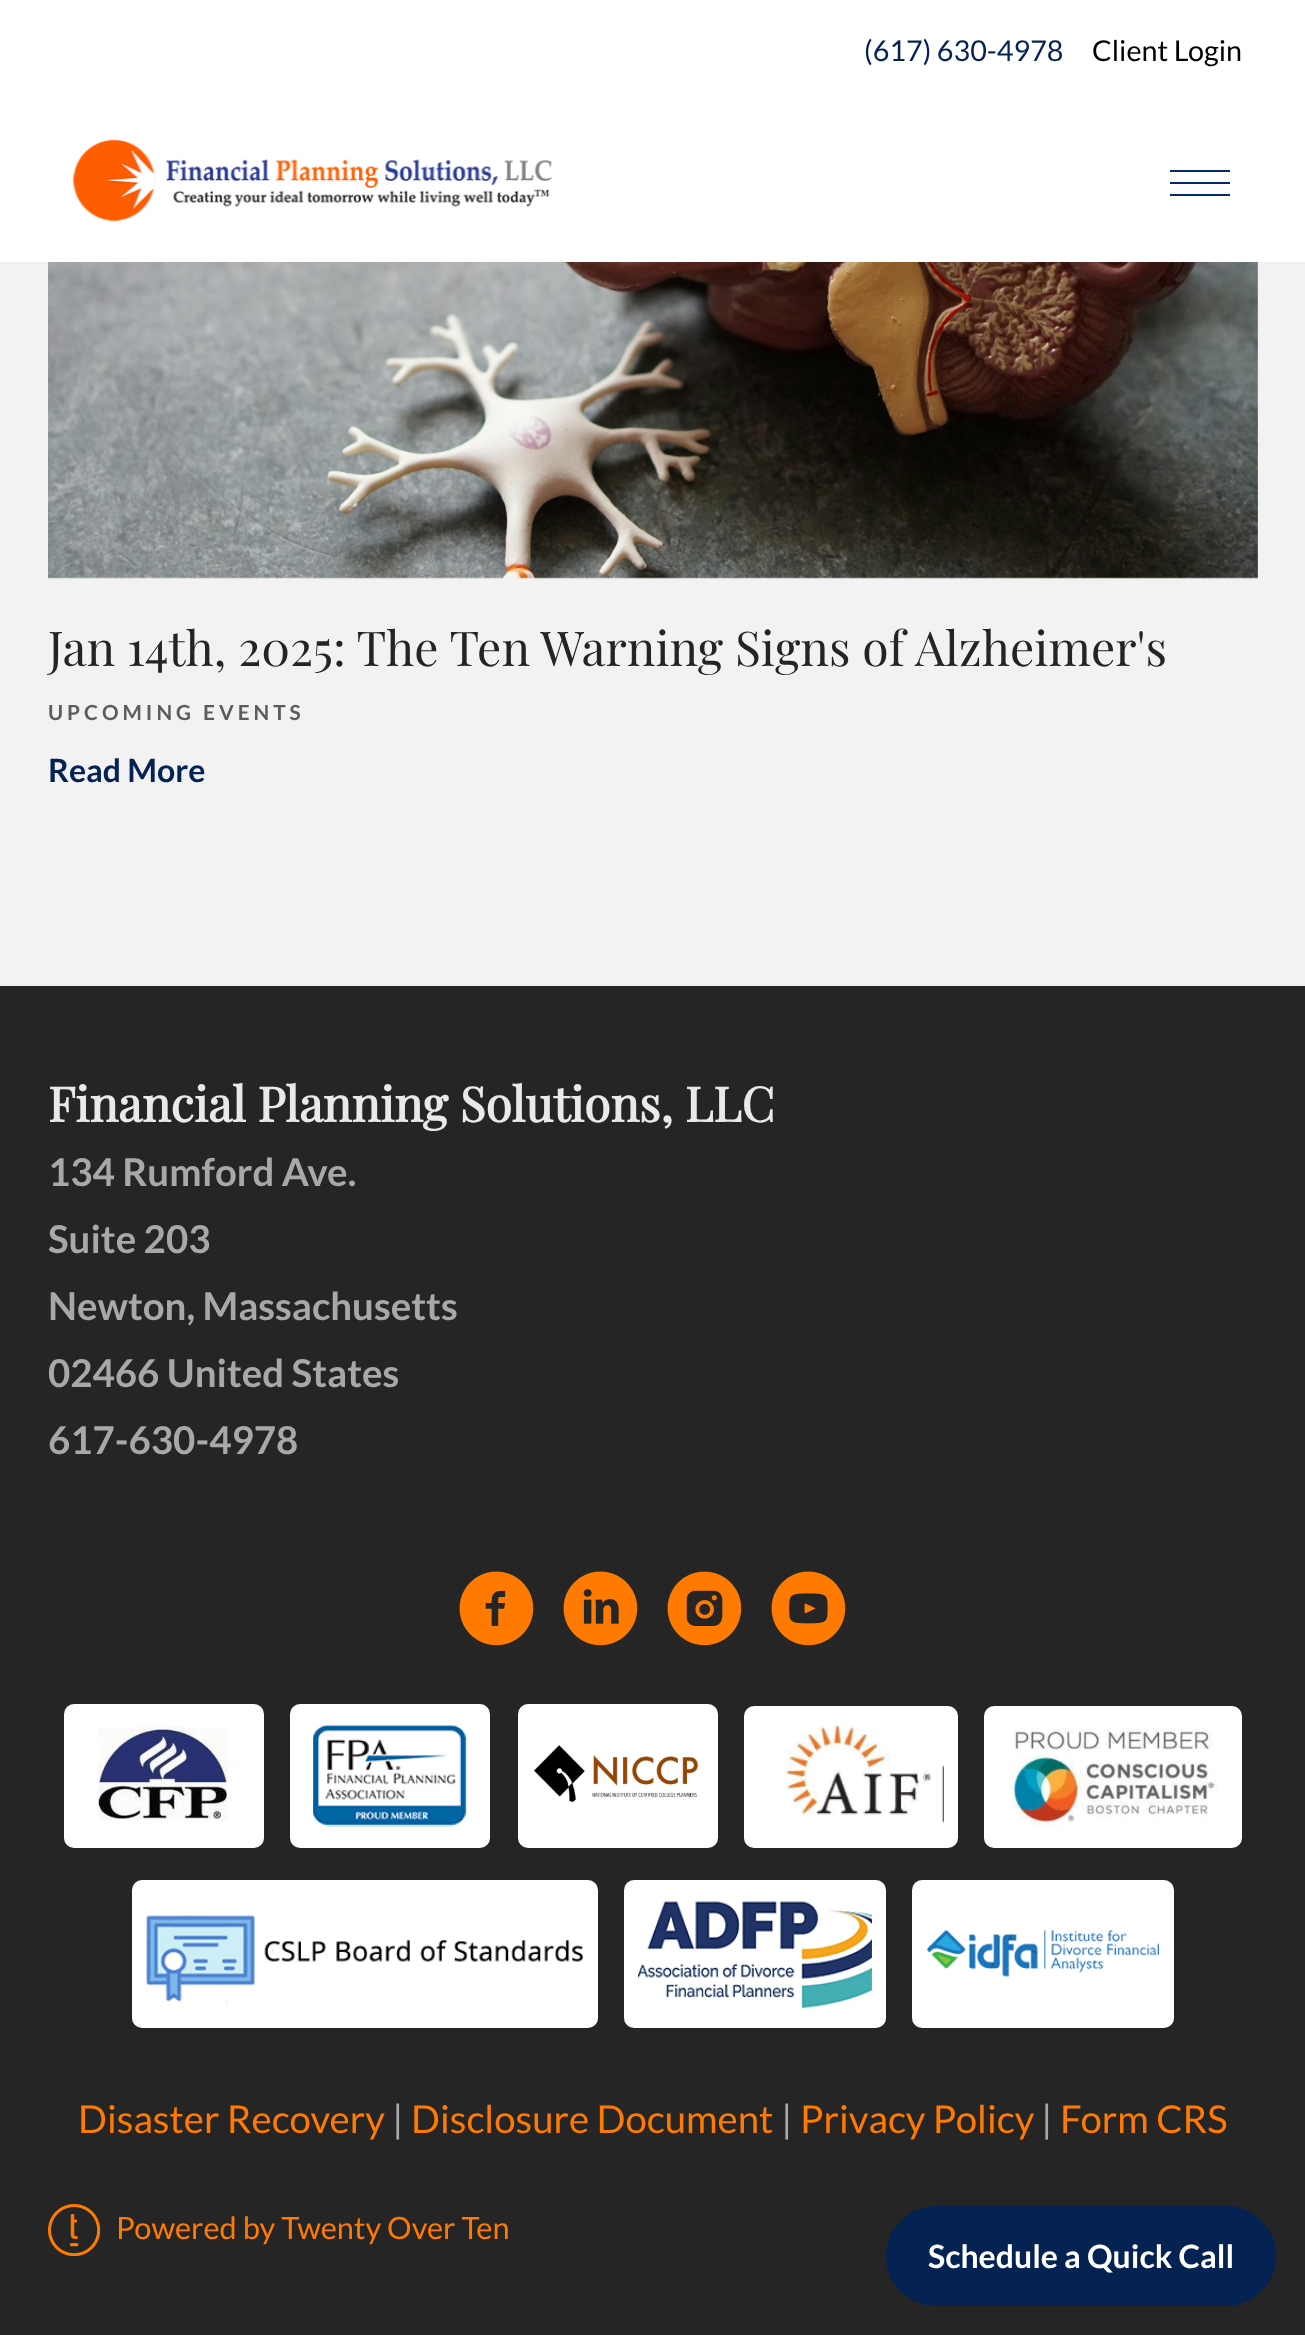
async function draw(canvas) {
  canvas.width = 1305
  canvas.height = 2335
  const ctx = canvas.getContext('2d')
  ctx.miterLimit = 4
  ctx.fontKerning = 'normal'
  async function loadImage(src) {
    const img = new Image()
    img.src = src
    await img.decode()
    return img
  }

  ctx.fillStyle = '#f2f2f2'
  ctx.fillRect(0, 0, 1305, 2335)
  ctx.fillStyle = '#fff'
  ctx.fillRect(0, 0, 1305, 262)
  ctx.font = '28.75px Lato'
  ctx.fillStyle = '#042353'
  ctx.fillText('(617) 630-4978', 864, 61)
  ctx.fillStyle = '#000'
  ctx.fillText('Client Login', 1092, 61)
  ctx.drawImage(await loadImage('image0.png'), 72, 139, 481, 83)
  ctx.fillStyle = '#002c6f'
  ctx.fillRect(1170, 182, 60, 2)
  ctx.fillRect(1170, 170, 60, 2)
  ctx.fillRect(1170, 194, 60, 2)
  ctx.drawImage(await loadImage('image1.png'), 48, 262, 1210, 317)
  ctx.font = '48px Playfair Display'
  ctx.fillStyle = '#242424'
  ctx.fillText('Jan 14th, 2025: The Ten Warning Signs of Alzheimer\'s', 48, 666)
  ctx.letterSpacing = '4px'
  ctx.font = 'bold 20.75px Lato'
  ctx.fillStyle = '#5c5c5c'
  ctx.fillText('UPCOMING EVENTS', 48, 720)
  ctx.letterSpacing = '0px'
  ctx.font = 'bold 32px Lato'
  ctx.fillStyle = '#042353'
  ctx.fillText('Read More', 48, 782)
  ctx.fillStyle = '#252525'
  ctx.fillRect(0, 986, 1305, 1349)
  ctx.font = 'bold 48px Playfair Display'
  ctx.fillStyle = '#e9e9e9'
  ctx.fillText('Financial Planning Solutions, LLC', 48, 1122)
  ctx.font = 'bold 38.4px Lato'
  ctx.fillStyle = '#a8a8a8'
  ctx.fillText('134 Rumford Ave.', 48, 1186)
  ctx.fillText('Suite 203', 48, 1253)
  ctx.fillText('Newton, Massachusetts', 48, 1320)
  ctx.fillText('02466 United States', 48, 1387)
  ctx.fillText('617-630-4978', 48, 1454)
  ctx.drawImage(await loadImage('image2.png'), 459, 1571, 75, 75)
  ctx.drawImage(await loadImage('image3.png'), 563, 1571, 75, 75)
  ctx.drawImage(await loadImage('image4.png'), 667, 1571, 75, 75)
  ctx.drawImage(await loadImage('image5.png'), 771, 1571, 75, 75)
  ctx.fillStyle = '#fff'
  ctx.beginPath()
  ctx.roundRect(64, 1704, 200, 144, 10)
  ctx.fill()
  ctx.drawImage(await loadImage('image6.png'), 97, 1726, 136, 94)
  ctx.beginPath()
  ctx.roundRect(290, 1704, 200, 144, 10)
  ctx.fill()
  ctx.drawImage(await loadImage('image7.png'), 313, 1724, 154, 103)
  ctx.beginPath()
  ctx.roundRect(518, 1704, 200, 144, 10)
  ctx.fill()
  ctx.drawImage(await loadImage('image8.png'), 533, 1745, 167, 58)
  ctx.beginPath()
  ctx.roundRect(744, 1706, 214, 142, 10)
  ctx.fill()
  ctx.drawImage(await loadImage('image9.png'), 785, 1725, 159, 98)
  ctx.beginPath()
  ctx.roundRect(984, 1706, 258, 142, 10)
  ctx.fill()
  ctx.drawImage(await loadImage('image10.png'), 1009, 1728, 209, 102)
  ctx.beginPath()
  ctx.roundRect(132, 1880, 466, 148, 10)
  ctx.fill()
  ctx.drawImage(await loadImage('image11.png'), 146, 1915, 437, 89)
  ctx.beginPath()
  ctx.roundRect(624, 1880, 262, 148, 10)
  ctx.fill()
  ctx.drawImage(await loadImage('image12.png'), 638, 1901, 234, 108)
  ctx.beginPath()
  ctx.roundRect(912, 1880, 262, 148, 10)
  ctx.fill()
  ctx.drawImage(await loadImage('image13.png'), 927, 1930, 232, 47)
  ctx.font = '38.4px Lato'
  ctx.fillStyle = '#ff7a00'
  ctx.fillText('Disaster Recovery', 78, 2133)
  ctx.fillStyle = '#a8a8a8'
  ctx.fillText('|', 392, 2133)
  ctx.fillStyle = '#ff7a00'
  ctx.fillText('Disclosure Document', 411, 2133)
  ctx.fillStyle = '#a8a8a8'
  ctx.fillText('|', 781, 2133)
  ctx.fillStyle = '#ff7a00'
  ctx.fillText('Privacy Policy', 800, 2133)
  ctx.fillStyle = '#a8a8a8'
  ctx.fillText('|', 1041, 2133)
  ctx.fillStyle = '#ff7a00'
  ctx.fillText('Form CRS', 1060, 2133)
  ctx.drawImage(await loadImage('image14.png'), 48, 2204, 52, 52)
  ctx.font = '30.75px Lato'
  ctx.fillText('Powered by Twenty Over Ten', 116, 2239)
  ctx.fillStyle = '#042353'
  ctx.beginPath()
  ctx.roundRect(887, 2207, 388, 98, 49)
  ctx.fill()
  ctx.strokeStyle = '#042353'
  ctx.lineWidth = 2
  ctx.stroke()
  ctx.font = 'bold 32px Lato'
  ctx.fillStyle = '#fff'
  ctx.fillText('Schedule a Quick Call', 928, 2268)
}

draw(document.querySelector('canvas'))
